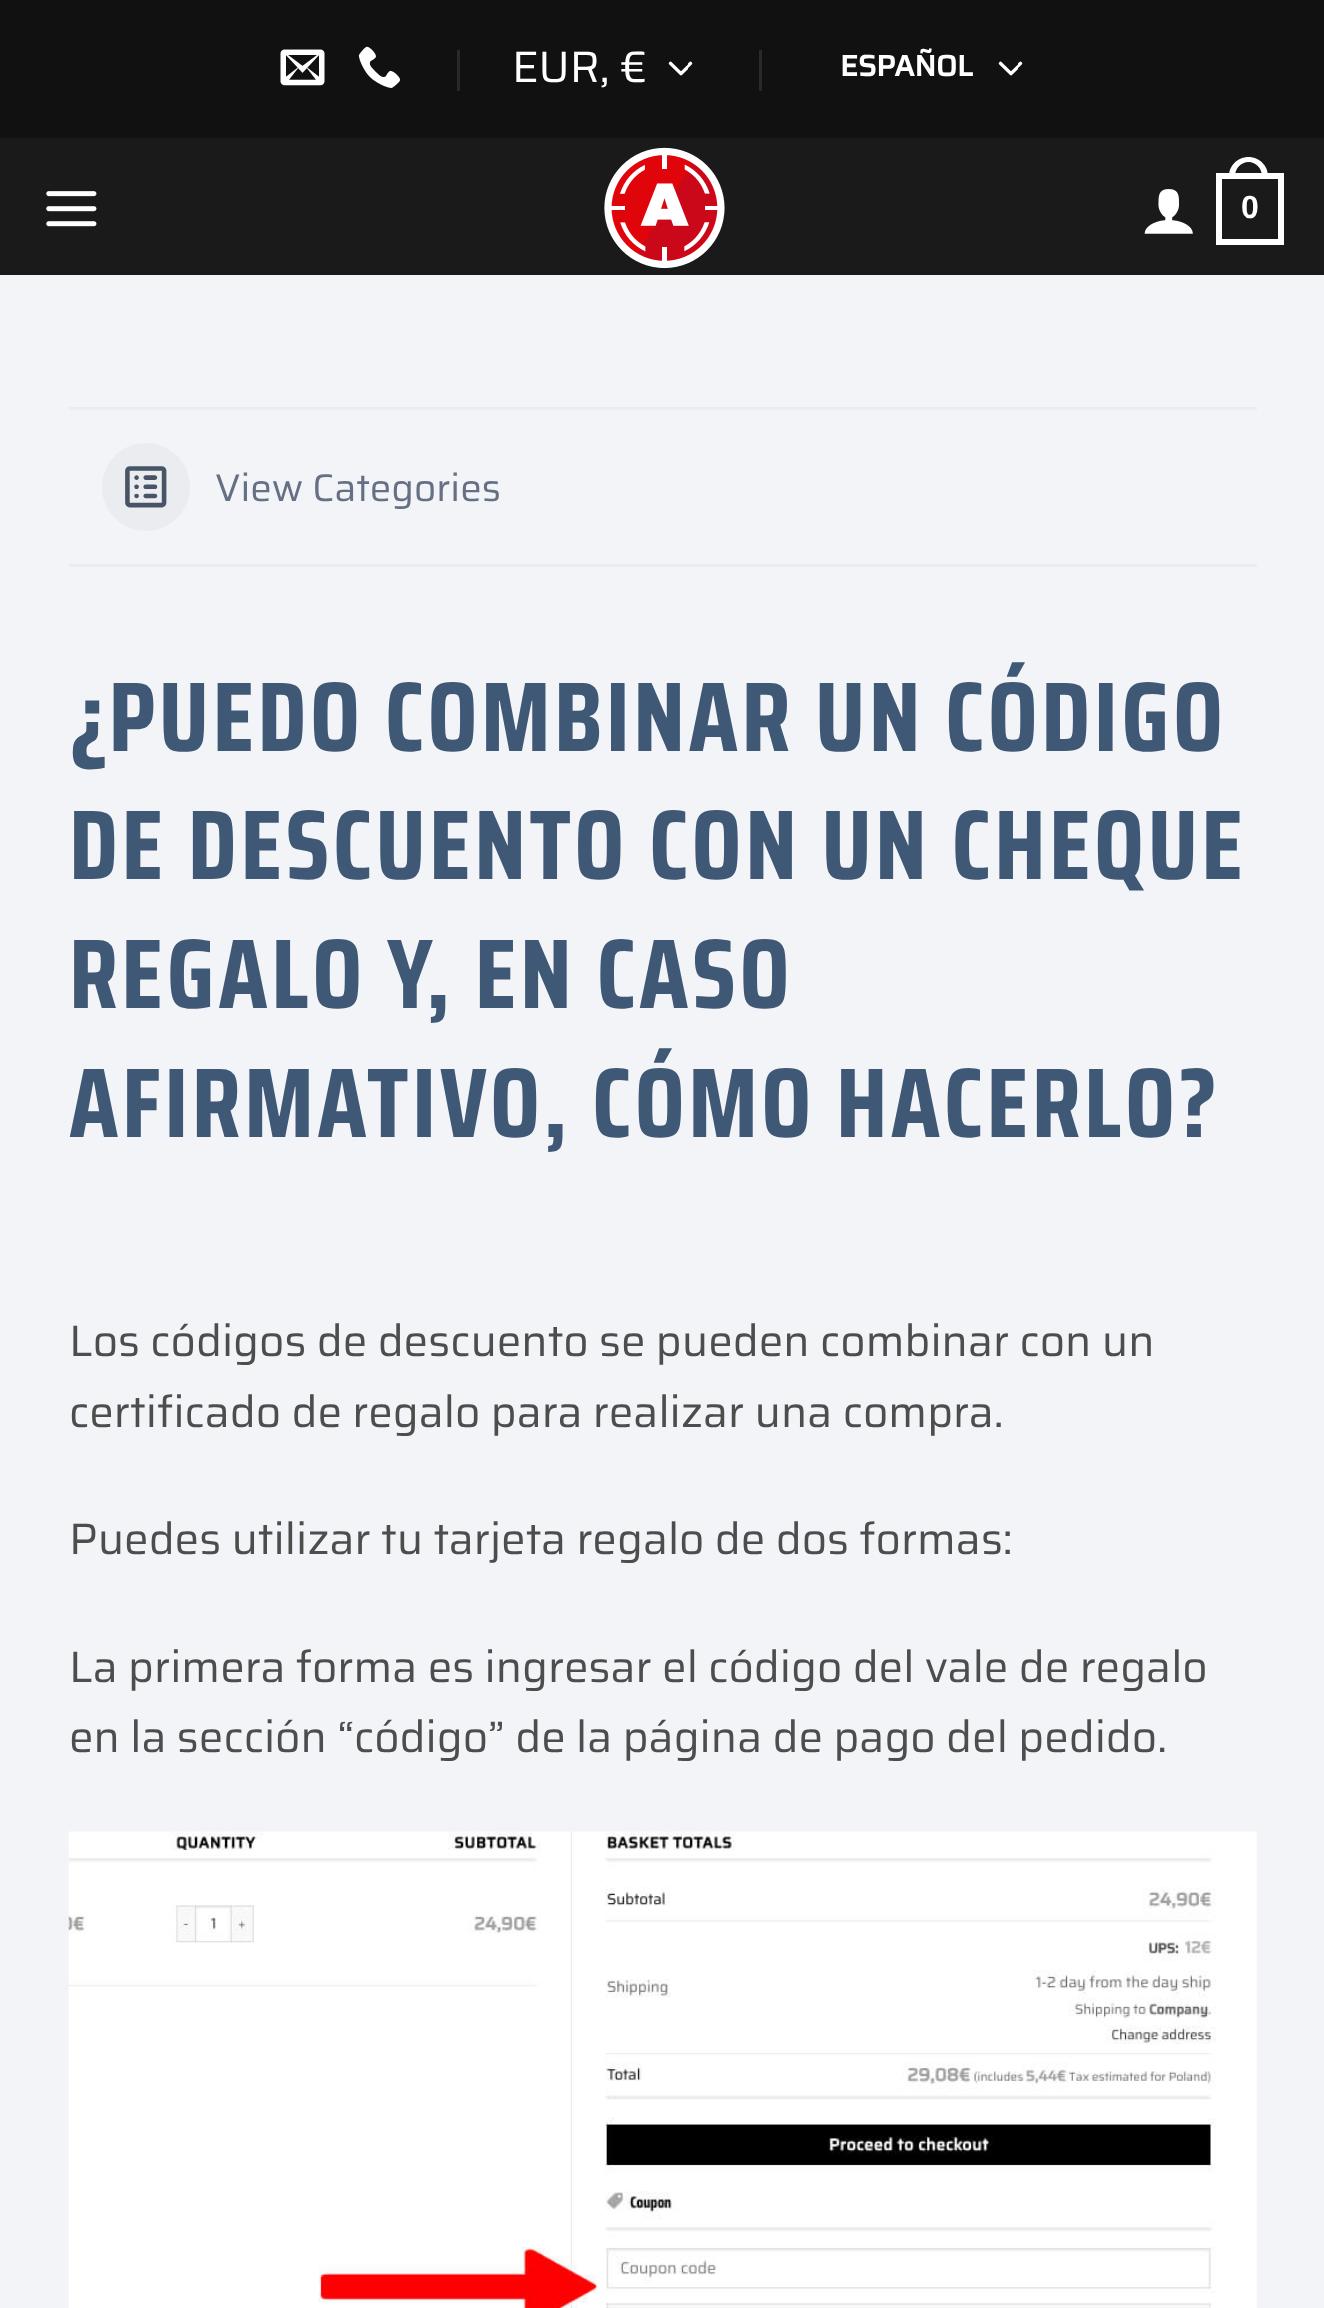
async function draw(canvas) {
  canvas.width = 1324
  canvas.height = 2308
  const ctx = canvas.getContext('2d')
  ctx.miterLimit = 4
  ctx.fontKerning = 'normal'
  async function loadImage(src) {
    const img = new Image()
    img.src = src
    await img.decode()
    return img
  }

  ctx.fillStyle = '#f2f4f7'
  ctx.fillRect(0, 0, 1324, 2308)
  ctx.fillStyle = '#111'
  ctx.fillRect(0, 0, 1324, 138)
  ctx.drawImage(await loadImage('image0.png'), 280, 49, 45, 37)
  ctx.drawImage(await loadImage('image1.png'), 358, 46, 43, 42)
  ctx.fillStyle = '#292929'
  ctx.fillRect(457, 50, 3, 41)
  ctx.font = '44px Saira'
  ctx.fillStyle = '#fff'
  ctx.fillText('EUR, €', 512, 82)
  ctx.drawImage(await loadImage('image2.png'), 668, 61, 25, 15)
  ctx.fillStyle = '#292929'
  ctx.fillRect(759, 50, 3, 41)
  ctx.font = 'bold 29.5px Saira'
  ctx.fillStyle = '#fff'
  ctx.fillText('ESPAÑOL', 840, 76)
  ctx.drawImage(await loadImage('image2.png'), 998, 61, 25, 15)
  ctx.fillStyle = '#1a1a1a'
  ctx.fillRect(0, 138, 1324, 137)
  ctx.drawImage(await loadImage('image3.png'), 46, 191, 51, 36)
  ctx.drawImage(await loadImage('image4.png'), 604, 147, 121, 122)
  ctx.drawImage(await loadImage('image5.png'), 1144, 189, 49, 45)
  ctx.strokeStyle = '#fff'
  ctx.lineWidth = 6
  ctx.strokeRect(1219, 176, 62, 66)
  ctx.fillStyle = '#fff'
  ctx.beginPath()
  ctx.moveTo(1248.5, 157)
  ctx.bezierCurveTo(1259, 157, 1268, 165.5, 1268, 176)
  ctx.lineTo(1268, 179)
  ctx.lineTo(1229, 179)
  ctx.lineTo(1229, 176)
  ctx.bezierCurveTo(1229, 165.5, 1238, 157, 1248.5, 157)
  ctx.closePath()
  ctx.moveTo(1248.5, 162)
  ctx.bezierCurveTo(1256, 162, 1262, 168.5, 1262, 176)
  ctx.lineTo(1262, 179)
  ctx.lineTo(1235, 179)
  ctx.lineTo(1235, 176)
  ctx.bezierCurveTo(1235, 168.5, 1241, 162, 1248.5, 162)
  ctx.closePath()
  ctx.fill('evenodd')
  ctx.font = 'bold 32px Liberation Sans'
  ctx.fillText('0', 1241, 218)
  ctx.fillStyle = '#eaecf0'
  ctx.fillRect(69, 407, 1188, 3)
  ctx.fillRect(69, 564, 1188, 3)
  ctx.beginPath()
  ctx.arc(146, 487, 44, 0, 2 * Math.PI)
  ctx.fill()
  ctx.drawImage(await loadImage('image6.png'), 125, 466, 42, 42)
  ctx.font = '38.5px Saira'
  ctx.fillStyle = '#667085'
  ctx.fillText('View Categories', 215, 501)
  ctx.letterSpacing = '3.45px'
  ctx.font = 'bold 99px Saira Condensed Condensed'
  ctx.fillStyle = '#3f5876'
  ctx.fillText('¿PUEDO COMBINAR UN CÓDIGO', 69, 751)
  ctx.fillText('DE DESCUENTO CON UN CHEQUE', 69, 879)
  ctx.fillText('REGALO Y, EN CASO', 69, 1008)
  ctx.fillText('AFIRMATIVO, CÓMO HACERLO?', 69, 1137)
  ctx.letterSpacing = '0px'
  ctx.font = '44px Saira'
  ctx.fillStyle = '#4d4d4d'
  ctx.fillText('Los códigos de descuento se pueden combinar con un', 69, 1356)
  ctx.fillText('certificado de regalo para realizar una compra.', 69, 1427)
  ctx.fillText('Puedes utilizar tu tarjeta regalo de dos formas:', 69, 1554)
  ctx.fillText('La primera forma es ingresar el código del vale de regalo', 69, 1682)
  ctx.fillText('en la sección “código” de la página de pago del pedido.', 69, 1752)
  ctx.drawImage(await loadImage('image7.png'), 68, 1831, 1189, 477)
}

draw(document.querySelector('canvas'))
